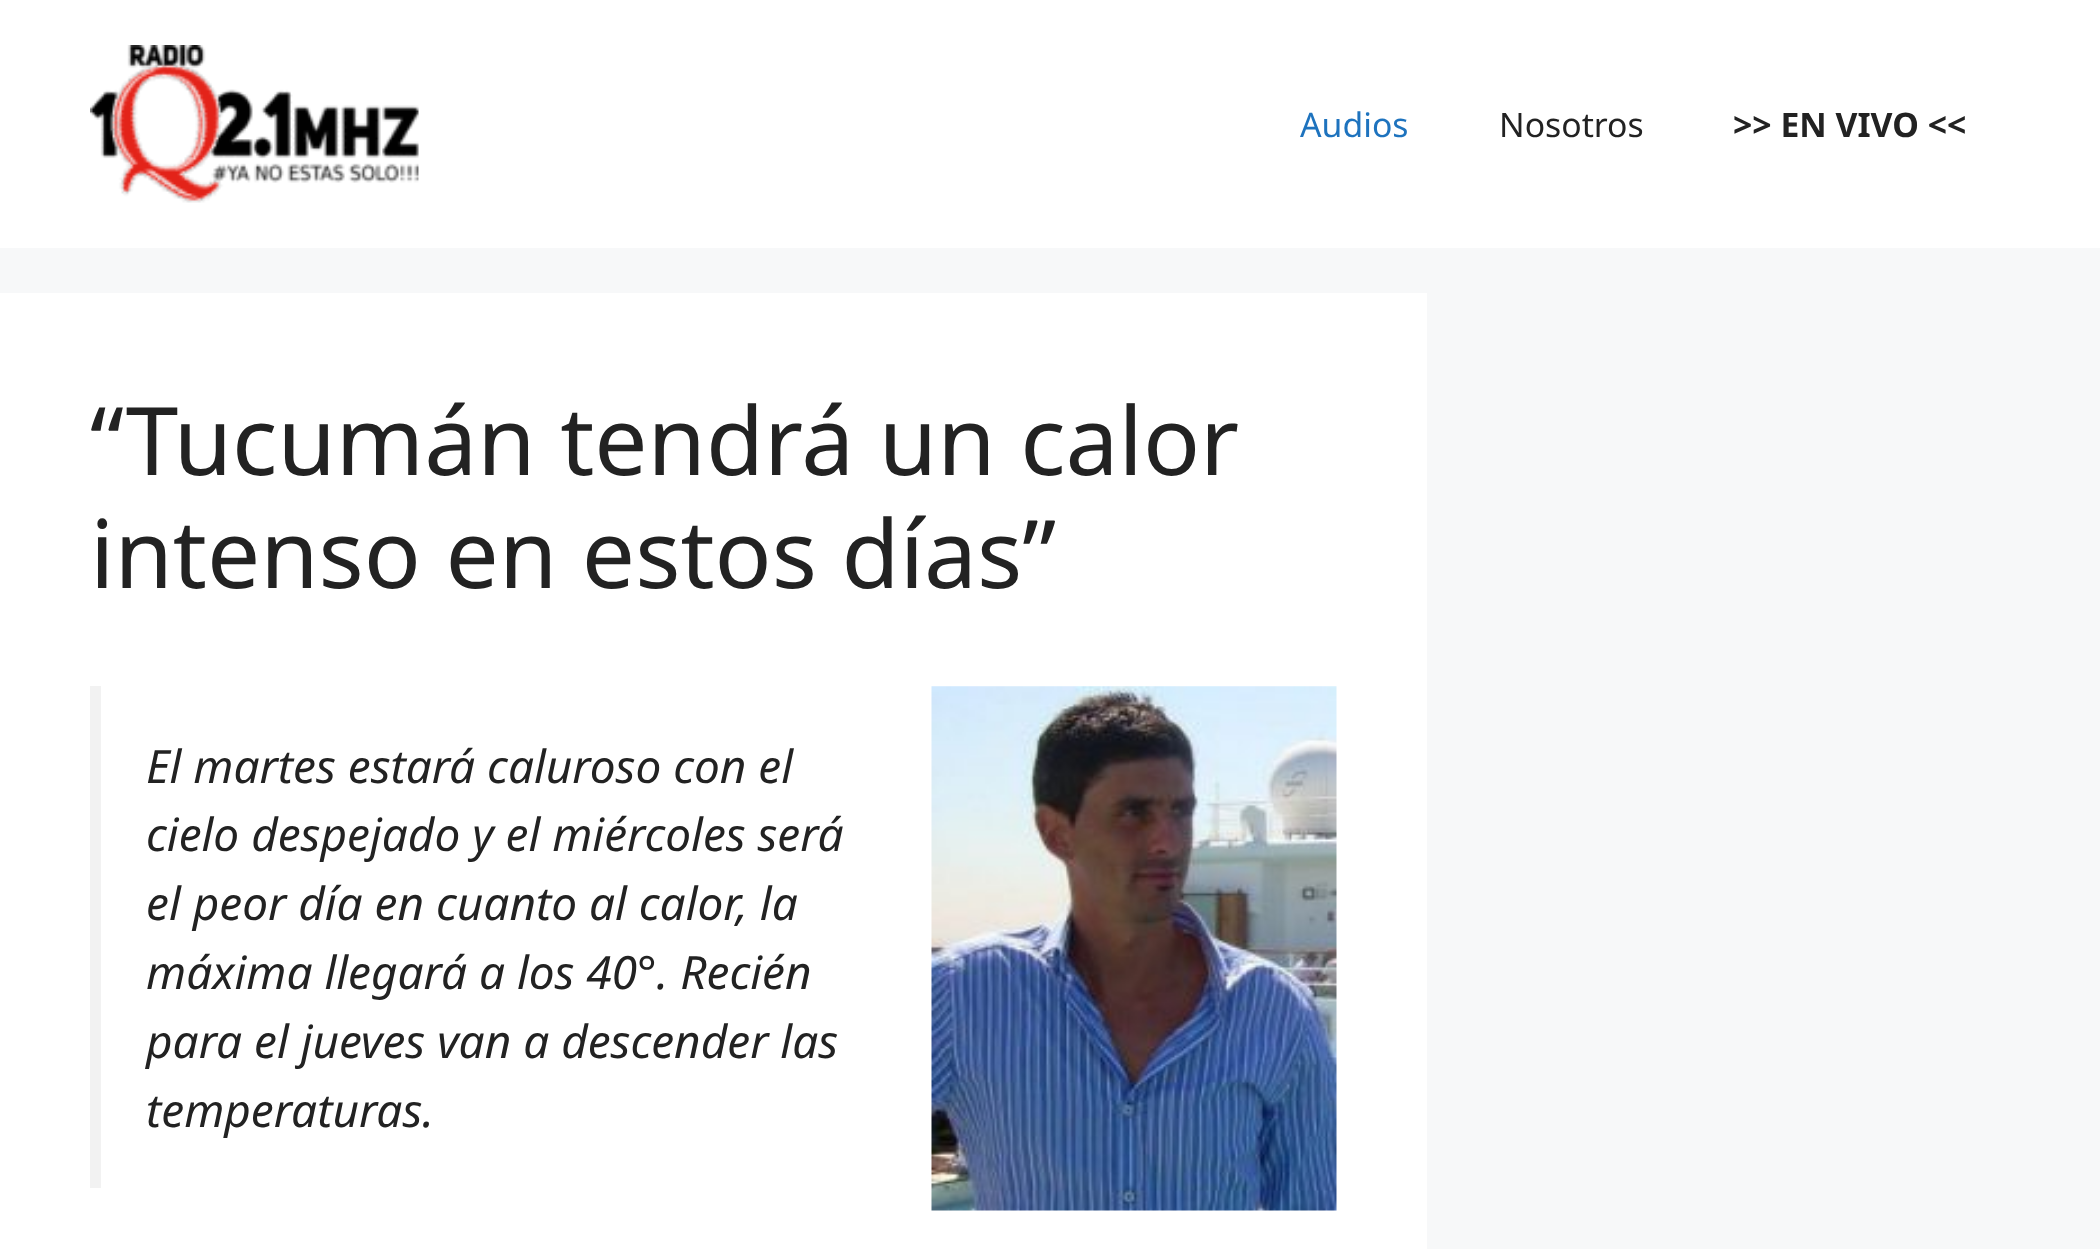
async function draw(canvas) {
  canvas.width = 2100
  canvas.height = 1249
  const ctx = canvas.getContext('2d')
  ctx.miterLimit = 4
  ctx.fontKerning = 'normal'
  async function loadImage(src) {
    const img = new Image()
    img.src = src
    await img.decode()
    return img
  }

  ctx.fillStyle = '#f7f8f9'
  ctx.fillRect(0, 0, 2100, 1249)
  ctx.fillStyle = '#fff'
  ctx.fillRect(0, 0, 2100, 248)
  ctx.drawImage(await loadImage('image0.png'), 90, 45, 329, 158)
  ctx.font = '33.75px Noto Sans'
  ctx.fillStyle = '#1e73be'
  ctx.fillText('Audios', 1300, 137)
  ctx.fillStyle = '#222'
  ctx.fillText('Nosotros', 1499, 137)
  ctx.font = 'bold 33.75px Noto Sans'
  ctx.fillText('>> EN VIVO <<', 1733, 137)
  ctx.fillStyle = '#fff'
  ctx.fillRect(0, 293, 1427, 956)
  ctx.font = '94.5px Noto Sans'
  ctx.fillStyle = '#222'
  ctx.fillText('“Tucumán tendrá un calor', 90, 475)
  ctx.fillText('intenso en estos días”', 90, 588)
  ctx.fillStyle = '#f2f2f2'
  ctx.fillRect(90, 686, 11, 502)
  ctx.font = 'italic 45.9px Noto Sans'
  ctx.fillStyle = '#222'
  ctx.fillText('El martes estará caluroso con el', 146, 783)
  ctx.fillText('cielo despejado y el miércoles será', 146, 851)
  ctx.fillText('el peor día en cuanto al calor, la', 146, 920)
  ctx.fillText('máxima llegará a los 40°. Recién', 146, 989)
  ctx.fillText('para el jueves van a descender las', 146, 1058)
  ctx.fillText('temperaturas.', 146, 1127)
  ctx.drawImage(await loadImage('image1.png'), 931, 686, 406, 525)
}

draw(document.querySelector('canvas'))
